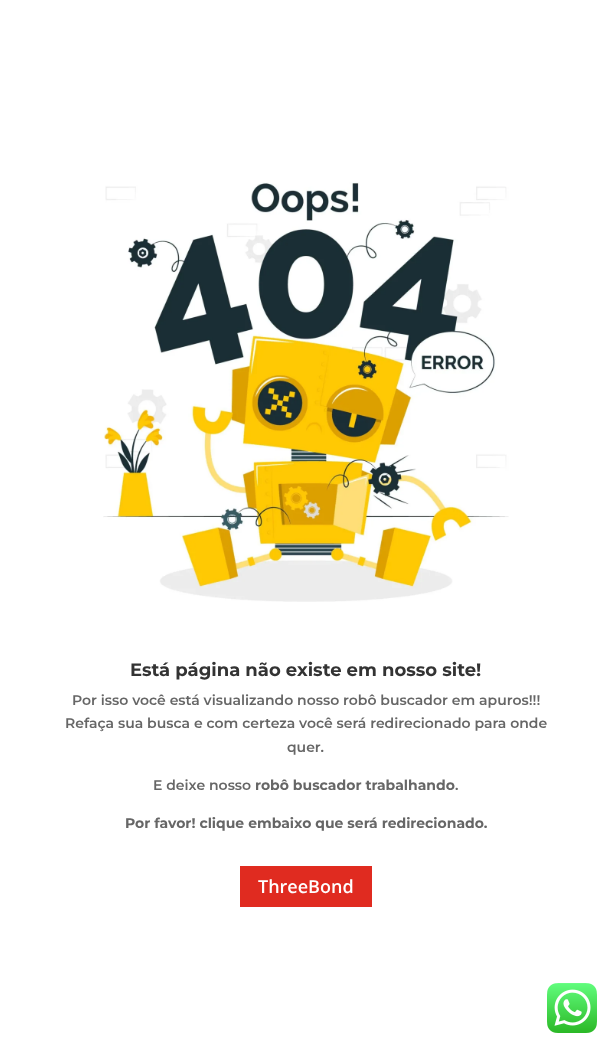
async function draw(canvas) {
  canvas.width = 612
  canvas.height = 1048
  const ctx = canvas.getContext('2d')
  ctx.miterLimit = 4
  ctx.fontKerning = 'normal'
  async function loadImage(src) {
    const img = new Image()
    img.src = src
    await img.decode()
    return img
  }

  ctx.fillStyle = '#fff'
  ctx.fillRect(0, 0, 612, 1048)
  ctx.drawImage(await loadImage('image0.png'), 103, 182, 406, 420)
  ctx.font = 'bold 18px Montserrat'
  ctx.fillStyle = '#333'
  ctx.fillText('Está página não existe em nosso site!', 130, 676)
  ctx.font = '600 14px Montserrat'
  ctx.fillStyle = '#666'
  ctx.fillText('Por isso você está visualizando nosso robô buscador em apuros!!!', 72, 705)
  ctx.fillText('Refaça sua busca e com certeza você será redirecionado para onde', 65, 728)
  ctx.fillText('quer.', 287, 752)
  ctx.fillText('E deixe nosso', 153, 790)
  ctx.font = 'bold 14px Montserrat'
  ctx.fillText('robô buscador trabalhando', 255, 790)
  ctx.font = '600 14px Montserrat'
  ctx.fillText('.', 455, 790)
  ctx.font = 'bold 14px Montserrat'
  ctx.fillText('Por favor! clique embaixo que será redirecionado.', 125, 828)
  ctx.fillStyle = '#e02b20'
  ctx.fillRect(240, 866, 132, 41)
  ctx.font = '600 18px Open Sans'
  ctx.fillStyle = '#fff'
  ctx.fillText('ThreeBond', 258, 893)
  ctx.drawImage(await loadImage('image1.png'), 547, 983, 50, 50)
}

draw(document.querySelector('canvas'))
